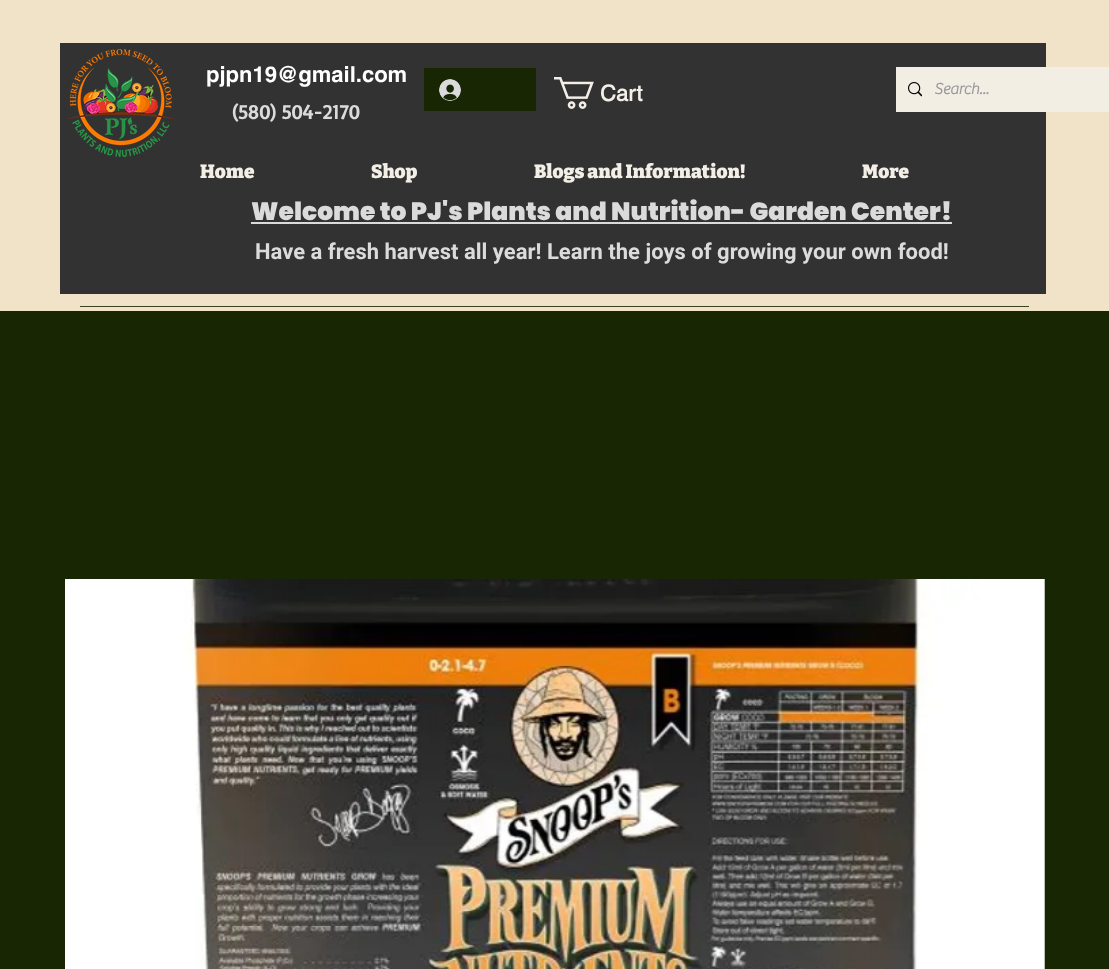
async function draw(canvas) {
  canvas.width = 1109
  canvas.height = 969
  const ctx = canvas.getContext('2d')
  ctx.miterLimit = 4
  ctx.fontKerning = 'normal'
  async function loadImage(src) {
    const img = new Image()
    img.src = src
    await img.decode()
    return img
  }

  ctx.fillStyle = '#192603'
  ctx.fillRect(0, 0, 1109, 969)
  ctx.fillStyle = '#f1e3c8'
  ctx.fillRect(0, 0, 1109, 311)
  ctx.fillStyle = '#323232'
  ctx.fillRect(60, 43, 986, 251)
  ctx.drawImage(await loadImage('image0.png'), 65, 49, 112, 108)
  ctx.font = 'bold 22px helvetica'
  ctx.fillStyle = '#fff'
  ctx.fillText('pjpn19@gmail.com', 206, 82)
  ctx.fillStyle = '#192603'
  ctx.fillRect(424, 68, 112, 43)
  ctx.drawImage(await loadImage('image1.png'), 439, 79, 22, 22)
  ctx.drawImage(await loadImage('image2.png'), 554, 77, 40, 32)
  ctx.font = 'bold 22px "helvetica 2"'
  ctx.fillStyle = '#f3efe7'
  ctx.fillText('Cart', 600, 101)
  ctx.fillStyle = '#f2eee4'
  ctx.fillRect(896, 67, 213, 45)
  ctx.drawImage(await loadImage('image3.png'), 908, 82, 14, 15)
  ctx.font = 'bold 16px "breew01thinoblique"'
  ctx.fillStyle = '#999'
  ctx.fillText('Search...', 934, 94)
  ctx.font = 'bold 20px Basic'
  ctx.fillStyle = '#dbdbdb'
  ctx.fillText('(580) 504-2170', 232, 119)
  ctx.font = '900 25px Poppins'
  ctx.fillText('Welcome to PJ\'s Plants and Nutrition- Garden Center!', 251, 220)
  ctx.fillRect(251, 222, 701, 2)
  ctx.font = 'bold 22px Roboto'
  ctx.fillText('Have a fresh harvest all year! Learn the joys of growing your own food!', 255, 259)
  ctx.font = '900 19px Bitter'
  ctx.fillStyle = '#f3efe7'
  ctx.fillText('Home', 200, 178)
  ctx.fillText('Shop', 371, 178)
  ctx.fillText('Blogs and Information!', 534, 178)
  ctx.fillText('More', 862, 178)
  ctx.fillStyle = '#394221'
  ctx.fillRect(80, 306, 949, 1)
  ctx.drawImage(await loadImage('image4.png'), 65, 579, 980, 390)
}

draw(document.querySelector('canvas'))
